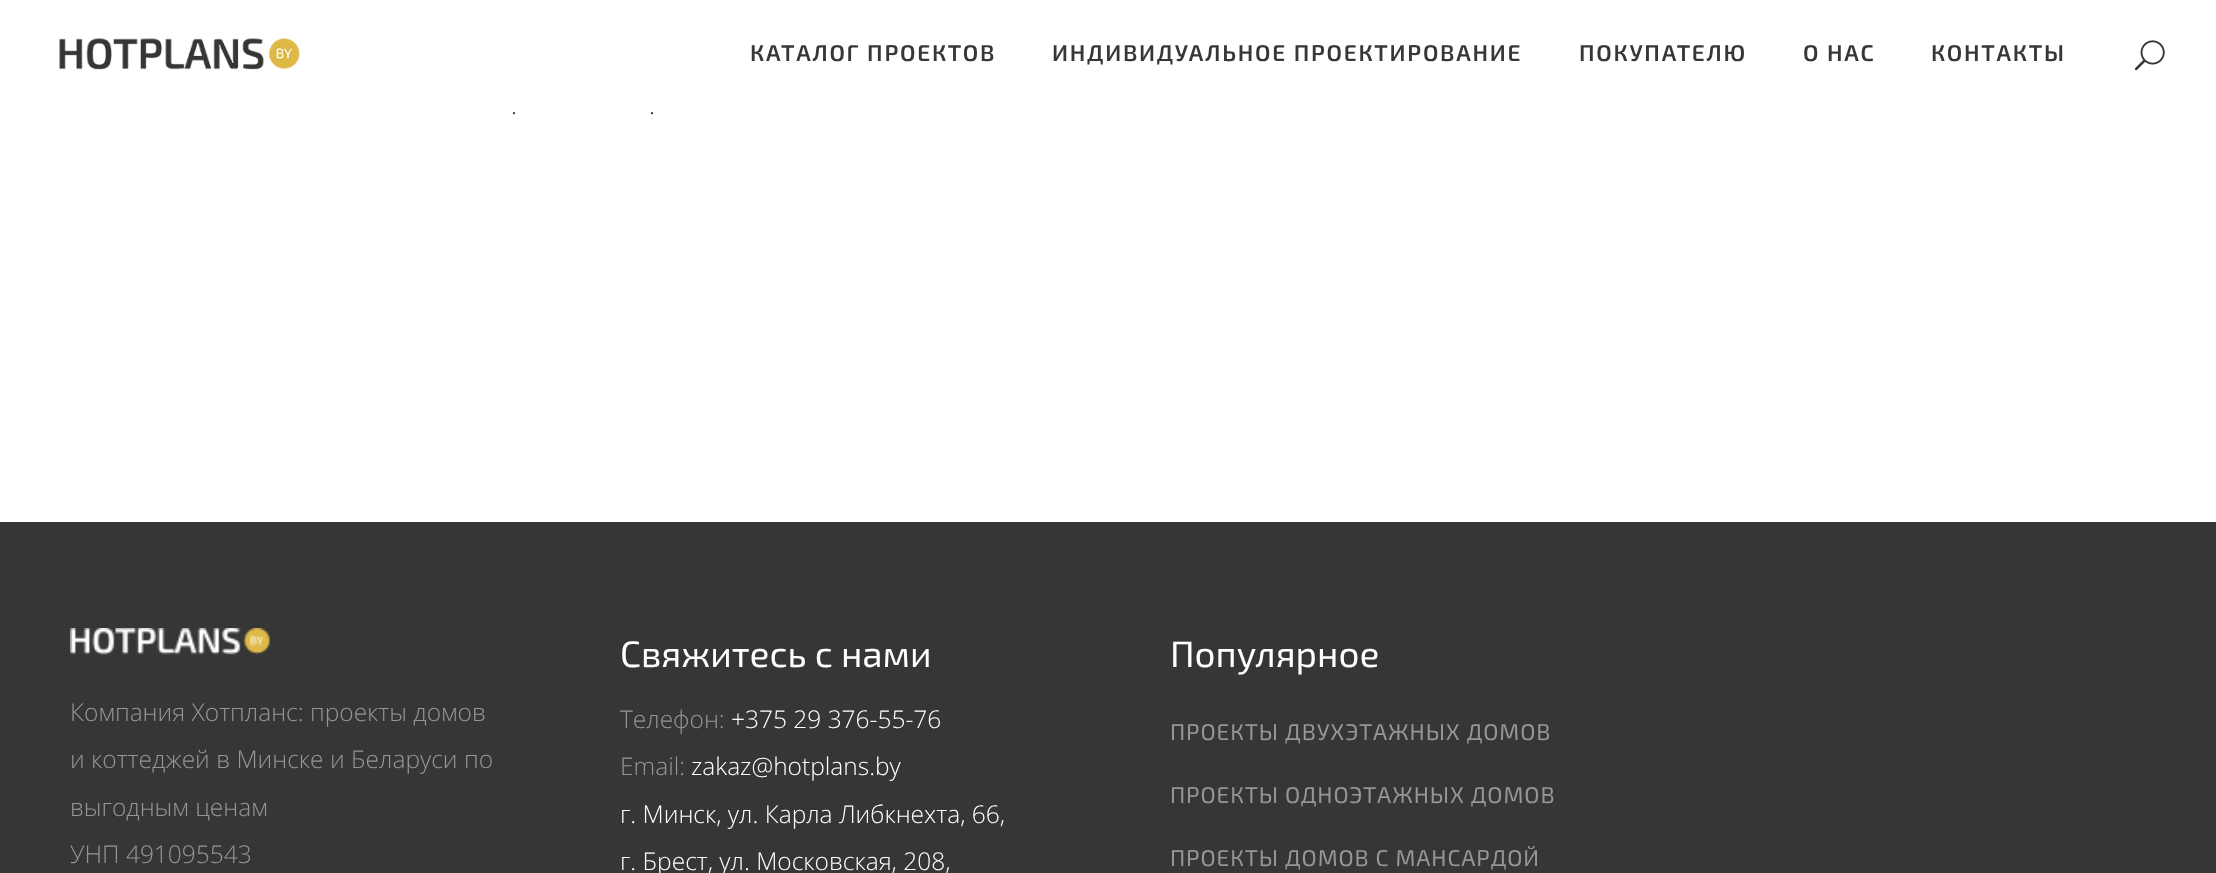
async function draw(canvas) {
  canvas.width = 2216
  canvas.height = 873
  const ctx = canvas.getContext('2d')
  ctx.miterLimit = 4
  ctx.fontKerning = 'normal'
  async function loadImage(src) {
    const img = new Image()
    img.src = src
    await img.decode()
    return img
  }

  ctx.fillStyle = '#fff'
  ctx.fillRect(0, 0, 2216, 873)
  ctx.drawImage(await loadImage('image0.png'), 59, 38, 241, 32)
  ctx.letterSpacing = '1.75px'
  ctx.font = '600 22.75px "Exo 2"'
  ctx.fillStyle = '#373737'
  ctx.fillText('КАТАЛОГ ПРОЕКТОВ', 750, 61)
  ctx.fillText('ИНДИВИДУАЛЬНОЕ ПРОЕКТИРОВАНИЕ', 1052, 61)
  ctx.fillText('ПОКУПАТЕЛЮ', 1579, 61)
  ctx.fillText('О НАС', 1803, 61)
  ctx.fillText('КОНТАКТЫ', 1931, 61)
  ctx.drawImage(await loadImage('image1.png'), 2134, 40, 31, 31)
  ctx.letterSpacing = '0px'
  ctx.font = '300 24.5px Open Sans'
  ctx.fillStyle = '#2d2d2d'
  ctx.fillText('.', 511, 114)
  ctx.fillText('.', 649, 114)
  ctx.fillStyle = '#363636'
  ctx.fillRect(0, 522, 2216, 351)
  ctx.drawImage(await loadImage('image2.png'), 70, 628, 200, 27)
  ctx.fillStyle = '#969696'
  ctx.fillText('Компания Хотпланс: проекты домов', 70, 721)
  ctx.fillText('и коттеджей в Минске и Беларуси по', 70, 768)
  ctx.fillText('выгодным ценам', 70, 816)
  ctx.fillText('УНП 491095543', 70, 863)
  ctx.font = '36.75px "Exo 2"'
  ctx.fillStyle = '#fff'
  ctx.fillText('Свяжитесь с нами', 620, 667)
  ctx.font = '300 24.5px Open Sans'
  ctx.fillStyle = '#969696'
  ctx.fillText('Телефон:', 620, 728)
  ctx.fillStyle = '#fff'
  ctx.fillText('+375 29 376-55-76', 731, 728)
  ctx.fillStyle = '#969696'
  ctx.fillText('Email:', 620, 775)
  ctx.fillStyle = '#fff'
  ctx.fillText('zakaz@hotplans.by', 691, 775)
  ctx.fillText('г. Минск, ул. Карла Либкнехта, 66,', 620, 823)
  ctx.fillText('г. Брест, ул. Московская, 208,', 620, 870)
  ctx.font = '36.75px "Exo 2"'
  ctx.fillText('Популярное', 1170, 667)
  ctx.letterSpacing = '0.9px'
  ctx.font = '22.75px "Exo 2"'
  ctx.fillStyle = '#969696'
  ctx.fillText('ПРОЕКТЫ ДВУХЭТАЖНЫХ ДОМОВ', 1170, 740)
  ctx.fillText('ПРОЕКТЫ ОДНОЭТАЖНЫХ ДОМОВ', 1170, 803)
  ctx.fillText('ПРОЕКТЫ ДОМОВ С МАНСАРДОЙ', 1170, 866)
}

draw(document.querySelector('canvas'))
